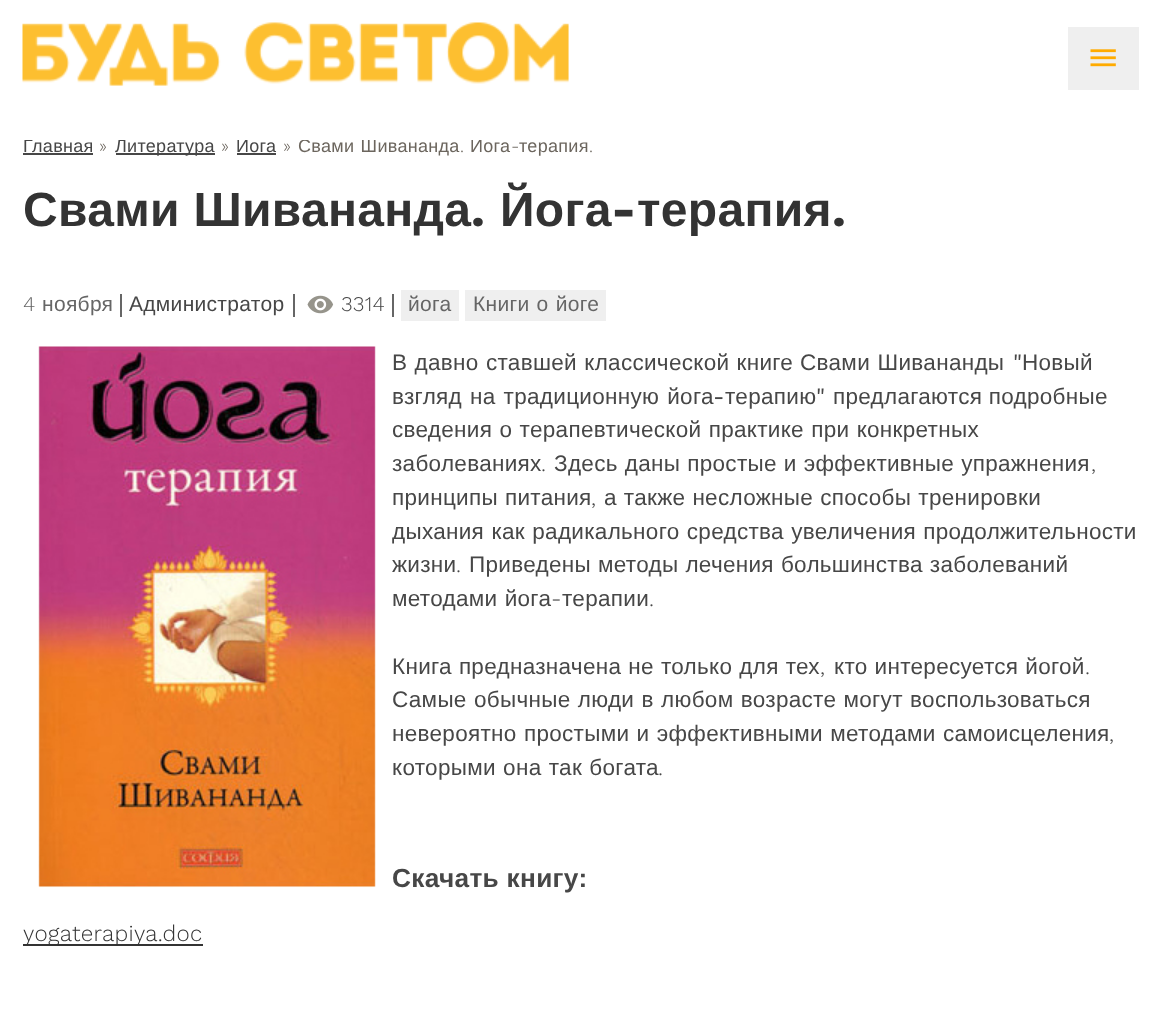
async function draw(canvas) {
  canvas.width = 1160
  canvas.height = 1010
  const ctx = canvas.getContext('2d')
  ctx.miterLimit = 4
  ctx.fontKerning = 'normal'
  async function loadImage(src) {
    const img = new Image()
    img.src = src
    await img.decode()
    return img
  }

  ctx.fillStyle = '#fff'
  ctx.fillRect(0, 0, 1160, 1010)
  ctx.letterSpacing = '0.3px'
  ctx.font = '18px Liberation Sans'
  ctx.fillStyle = '#474747'
  ctx.fillText('Главная', 23, 152)
  ctx.fillRect(116, 153, 99, 2)
  ctx.fillText('Литература', 115, 152)
  ctx.fillText('Йога', 236, 152)
  ctx.wordSpacing = '1px'
  ctx.fillStyle = '#6c665e'
  ctx.fillText('Свами Шивананда', 298, 152)
  ctx.wordSpacing = '0px'
  ctx.fillText('Йога', 470, 152)
  ctx.fillStyle = '#fff'
  ctx.fillRect(24, 135, 458, 5)
  ctx.drawImage(await loadImage('image0.png'), 22, 22, 547, 64)
  ctx.fillStyle = '#efefef'
  ctx.fillRect(1068, 27, 71, 63)
  ctx.drawImage(await loadImage('image1.png'), 1090, 49, 26, 18)
  ctx.fillStyle = '#474747'
  ctx.fillRect(23, 153, 70, 2)
  ctx.font = '300 18px Work Sans'
  ctx.fillStyle = '#6c665e'
  ctx.fillText('»', 99, 152)
  ctx.fillText('»', 221, 152)
  ctx.fillStyle = '#474747'
  ctx.fillRect(237, 153, 39, 2)
  ctx.fillStyle = '#6c665e'
  ctx.fillText('»', 283, 152)
  ctx.fillText('-', 511, 152)
  ctx.font = '18px Liberation Sans'
  ctx.fillText('терапия', 519, 152)
  ctx.font = '300 18px Work Sans'
  ctx.fillText('.', 460, 152)
  ctx.fillText('.', 589, 152)
  ctx.font = 'bold 48px Liberation Sans'
  ctx.fillStyle = '#333'
  ctx.fillText('Свами Шивананда', 23, 226)
  ctx.fillText('Йога', 500, 226)
  ctx.font = 'bold 48px Work Sans'
  ctx.fillText('-', 611, 226)
  ctx.font = 'bold 48px Liberation Sans'
  ctx.fillText('терапия', 637, 226)
  ctx.font = 'bold 48px Work Sans'
  ctx.fillText('.', 471, 226)
  ctx.fillText('.', 832, 226)
  ctx.fillStyle = '#666'
  ctx.fillRect(120, 294, 2, 23)
  ctx.font = '300 21px Work Sans'
  ctx.fillText('4', 23, 311)
  ctx.font = '21px Liberation Sans'
  ctx.fillText('ноября', 42, 311)
  ctx.fillRect(293, 294, 2, 23)
  ctx.fillStyle = '#474747'
  ctx.fillText('Администратор', 129, 311)
  ctx.fillStyle = '#666'
  ctx.fillRect(392, 294, 2, 23)
  ctx.drawImage(await loadImage('image2.png'), 307, 295, 27, 19)
  ctx.font = '300 21px Work Sans'
  ctx.fillStyle = '#474747'
  ctx.fillText('3314', 341, 311)
  ctx.fillStyle = '#efefef'
  ctx.fillRect(401, 290, 58, 31)
  ctx.font = '21px Liberation Sans'
  ctx.fillStyle = '#666'
  ctx.fillText('йога', 408, 311)
  ctx.fillStyle = '#efefef'
  ctx.fillRect(465, 290, 141, 31)
  ctx.wordSpacing = '1px'
  ctx.fillStyle = '#666'
  ctx.fillText('Книги о йоге', 473, 311)
  ctx.drawImage(await loadImage('image3.png'), 38, 346, 338, 542)
  ctx.wordSpacing = '0.75px'
  ctx.font = '22.5px Liberation Sans'
  ctx.fillStyle = '#474747'
  ctx.fillText('В давно ставшей классической книге', 392, 370)
  ctx.wordSpacing = '1px'
  ctx.fillText('Свами Шивананды', 800, 370)
  ctx.wordSpacing = '0px'
  ctx.font = '22.5px Work Sans'
  ctx.fillText('"', 1013, 370)
  ctx.font = '22.5px Liberation Sans'
  ctx.fillText('Новый', 1022, 370)
  ctx.wordSpacing = '1.5px'
  ctx.fillText('взгляд на традиционную йога', 392, 404)
  ctx.wordSpacing = '0px'
  ctx.font = '22.5px Work Sans'
  ctx.fillText('-', 713, 404)
  ctx.font = '22.5px Liberation Sans'
  ctx.fillText('терапию', 725, 404)
  ctx.font = '22.5px Work Sans'
  ctx.fillText('"', 816, 404)
  ctx.font = '22.5px Liberation Sans'
  ctx.fillText('предлагаются подробные', 833, 404)
  ctx.wordSpacing = '0.75px'
  ctx.fillText('сведения о терапевтической практике при конкретных', 392, 437)
  ctx.wordSpacing = '0px'
  ctx.fillText('заболеваниях', 392, 471)
  ctx.font = '300 22.5px Work Sans'
  ctx.fillText('.', 541, 471)
  ctx.wordSpacing = '0.5px'
  ctx.font = '22.5px Liberation Sans'
  ctx.fillText('Здесь даны простые и эффективные упражнения', 554, 471)
  ctx.wordSpacing = '0px'
  ctx.font = '300 22.5px Work Sans'
  ctx.fillText(',', 1091, 471)
  ctx.wordSpacing = '0.5px'
  ctx.font = '22.5px Liberation Sans'
  ctx.fillText('принципы питания', 392, 505)
  ctx.wordSpacing = '0px'
  ctx.font = '300 22.5px Work Sans'
  ctx.fillText(',', 591, 505)
  ctx.wordSpacing = '0.5px'
  ctx.font = '22.5px Liberation Sans'
  ctx.fillText('а также несложные способы тренировки', 604, 505)
  ctx.wordSpacing = '0.75px'
  ctx.fillText('дыхания как радикального средства увеличения продолжительности', 392, 539)
  ctx.wordSpacing = '0px'
  ctx.fillText('жизни', 392, 572)
  ctx.font = '300 22.5px Work Sans'
  ctx.fillText('.', 456, 572)
  ctx.wordSpacing = '0.5px'
  ctx.font = '22.5px Liberation Sans'
  ctx.fillText('Приведены методы лечения большинства заболеваний', 469, 572)
  ctx.wordSpacing = '0.75px'
  ctx.fillText('методами йога', 392, 606)
  ctx.wordSpacing = '0px'
  ctx.font = '300 22.5px Work Sans'
  ctx.fillText('-', 551, 606)
  ctx.font = '22.5px Liberation Sans'
  ctx.fillText('терапии', 562, 606)
  ctx.font = '300 22.5px Work Sans'
  ctx.fillText('.', 649, 606)
  ctx.wordSpacing = '0.5px'
  ctx.font = '22.5px Liberation Sans'
  ctx.fillText('Книга предназначена не только для тех', 392, 674)
  ctx.wordSpacing = '0px'
  ctx.font = '300 22.5px Work Sans'
  ctx.fillText(',', 820, 674)
  ctx.wordSpacing = '0.5px'
  ctx.font = '22.5px Liberation Sans'
  ctx.fillText('кто интересуется йогой', 834, 674)
  ctx.wordSpacing = '0px'
  ctx.font = '300 22.5px Work Sans'
  ctx.fillText('.', 1085, 674)
  ctx.wordSpacing = '0.75px'
  ctx.font = '22.5px Liberation Sans'
  ctx.fillText('Самые обычные люди в любом возрасте могут воспользоваться', 392, 707)
  ctx.fillText('невероятно простыми и эффективными методами самоисцеления', 392, 741)
  ctx.wordSpacing = '0px'
  ctx.font = '300 22.5px Work Sans'
  ctx.fillText(',', 1109, 741)
  ctx.wordSpacing = '0.75px'
  ctx.font = '22.5px Liberation Sans'
  ctx.fillText('которыми она так богата', 392, 775)
  ctx.wordSpacing = '0px'
  ctx.font = '300 22.5px Work Sans'
  ctx.fillText('.', 658, 775)
  ctx.font = 'bold 26.25px Liberation Sans'
  ctx.fillText('Скачать книгу:', 392, 887)
  ctx.fillStyle = '#333'
  ctx.fillRect(23, 944, 180, 2)
  ctx.font = '300 22.5px Work Sans'
  ctx.fillText('yogaterapiya.doc', 23, 941)
}

draw(document.querySelector('canvas'))
